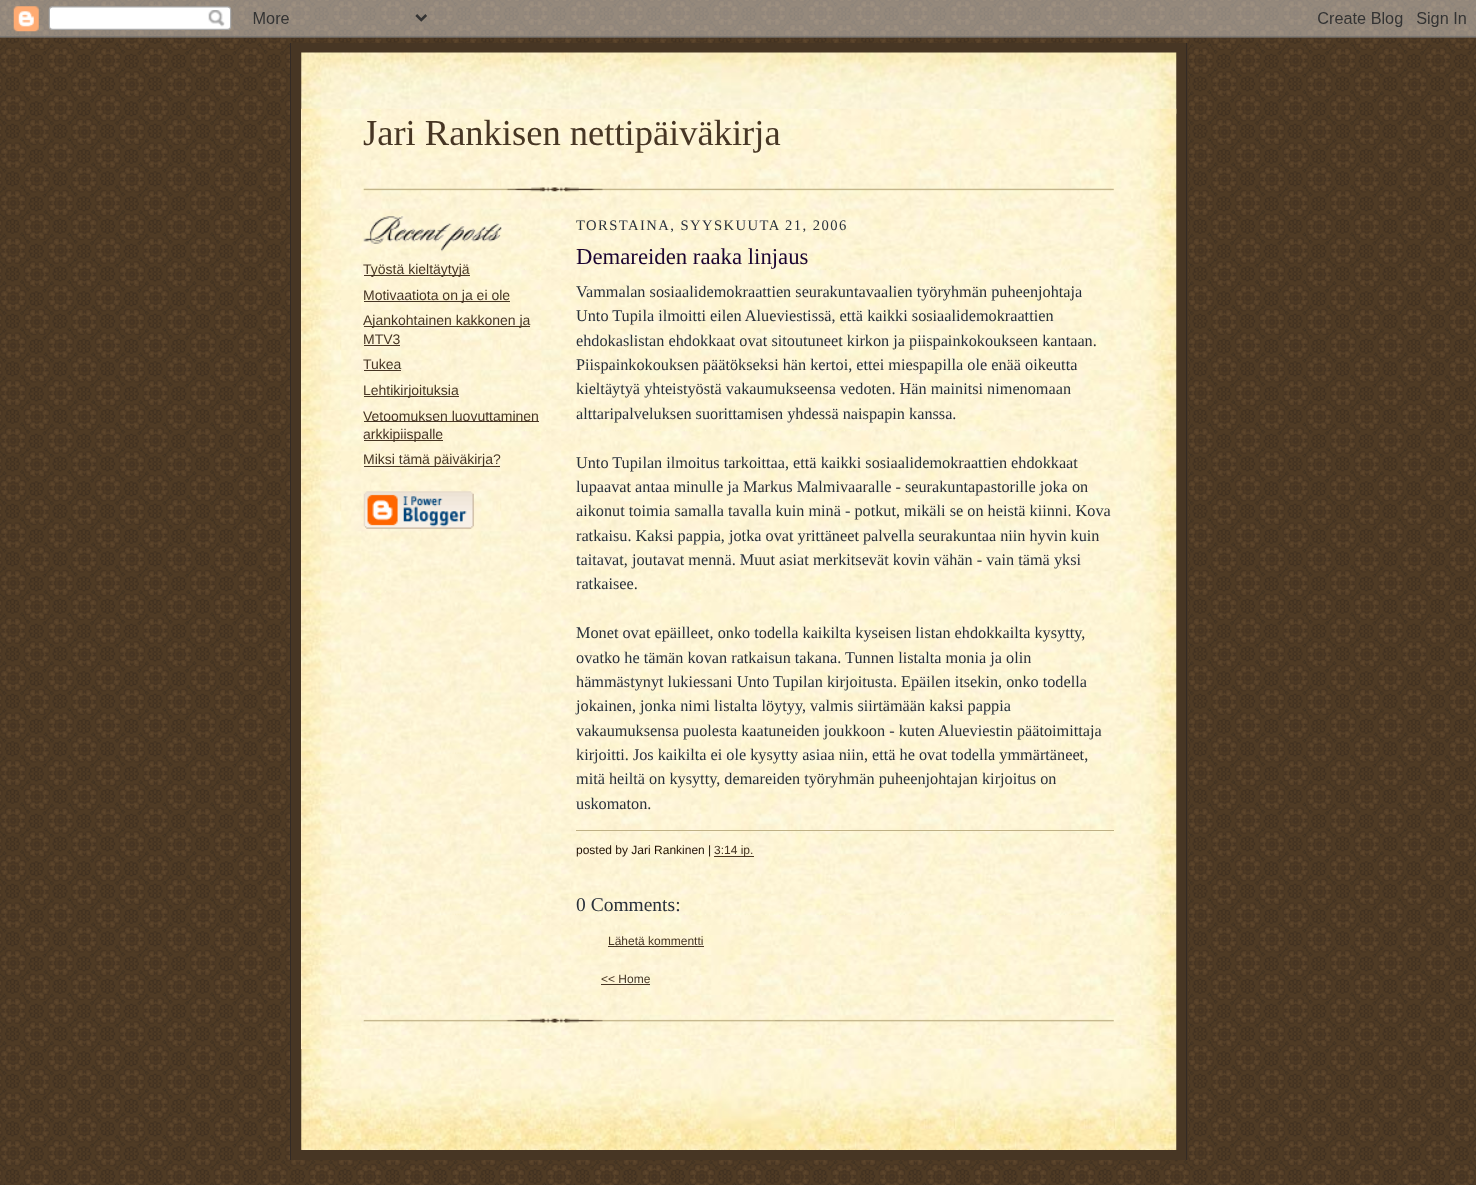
async function draw(canvas) {
  canvas.width = 1476
  canvas.height = 1185
  const ctx = canvas.getContext('2d')
  ctx.miterLimit = 4
  ctx.fontKerning = 'normal'
  async function loadImage(src) {
    const img = new Image()
    img.src = src
    await img.decode()
    return img
  }

  ctx.fillStyle = '#fff'
  ctx.fillRect(0, 0, 1476, 1185)
  ctx.drawImage(await loadImage('image0.png'), 0, 0, 1476, 1185)
  ctx.drawImage(await loadImage('image1.png'), 0, 0, 1476, 38)
  ctx.fillStyle = '#473624'
  ctx.fillRect(291, 43, 897, 1117)
  ctx.fillStyle = '#332a24'
  ctx.fillRect(1186, 43, 1, 1117)
  ctx.fillRect(290, 43, 1, 1117)
  ctx.drawImage(await loadImage('image2.png'), 301, 52, 876, 62)
  ctx.fillStyle = '#fff3db'
  ctx.fillRect(301, 109, 875, 940)
  ctx.drawImage(await loadImage('image3.png'), 301, 108, 876, 941)
  ctx.font = '36.5px Liberation Serif'
  ctx.fillStyle = '#473624'
  ctx.fillText('Jari Rankisen nettipäiväkirja', 363, 145)
  ctx.drawImage(await loadImage('image4.png'), 363, 187, 751, 5)
  ctx.drawImage(await loadImage('image5.png'), 363, 216, 139, 36)
  ctx.fillRect(364, 275, 106, 1)
  ctx.font = '14px Liberation Sans'
  ctx.fillText('Työstä kieltäytyjä', 363, 274)
  ctx.fillRect(364, 301, 146, 1)
  ctx.fillText('Motivaatiota on ja ei ole', 363, 300)
  ctx.fillRect(364, 326, 166, 1)
  ctx.fillText('Ajankohtainen kakkonen ja', 363, 325)
  ctx.fillText('MTV3', 363, 344)
  ctx.fillRect(364, 345, 36, 1)
  ctx.fillText('Tukea', 363, 369)
  ctx.fillRect(364, 370, 37, 1)
  ctx.fillRect(364, 396, 95, 1)
  ctx.fillText('Lehtikirjoituksia', 363, 395)
  ctx.fillRect(364, 421, 175, 1)
  ctx.fillText('Vetoomuksen luovuttaminen', 363, 421)
  ctx.fillRect(364, 440, 79, 1)
  ctx.fillText('arkkipiispalle', 363, 439)
  ctx.fillRect(364, 466, 136, 1)
  ctx.fillText('Miksi tämä päiväkirja?', 363, 464)
  ctx.drawImage(await loadImage('image6.png'), 363, 491, 111, 38)
  ctx.letterSpacing = '1.45px'
  ctx.font = '14.6px Liberation Serif'
  ctx.fillStyle = '#29303b'
  ctx.fillText('TORSTAINA, SYYSKUUTA 21, 2006', 576, 230)
  ctx.letterSpacing = '0px'
  ctx.font = '22.75px Liberation Serif'
  ctx.fillStyle = '#1b0431'
  ctx.fillText('Demareiden raaka linjaus', 576, 264)
  ctx.font = '16.25px Liberation Serif'
  ctx.fillStyle = '#29303b'
  ctx.fillText('Vammalan sosiaalidemokraattien seurakuntavaalien työryhmän puheenjohtaja', 576, 297)
  ctx.fillText('Unto Tupila ilmoitti eilen Alueviestissä, että kaikki sosiaalidemokraattien', 576, 321)
  ctx.fillText('ehdokaslistan ehdokkaat ovat sitoutuneet kirkon ja piispainkokoukseen kantaan.', 576, 346)
  ctx.fillText('Piispainkokouksen päätökseksi hän kertoi, ettei miespapilla ole enää oikeutta', 576, 370)
  ctx.fillText('kieltäytyä yhteistyöstä vakaumukseensa vedoten. Hän mainitsi nimenomaan', 576, 394)
  ctx.fillText('alttaripalveluksen suorittamisen yhdessä naispapin kanssa.', 576, 419)
  ctx.fillText('Unto Tupilan ilmoitus tarkoittaa, että kaikki sosiaalidemokraattien ehdokkaat', 576, 468)
  ctx.fillText('lupaavat antaa minulle ja Markus Malmivaaralle - seurakuntapastorille joka on', 576, 492)
  ctx.fillText('aikonut toimia samalla tavalla kuin minä - potkut, mikäli se on heistä kiinni. Kova', 576, 516)
  ctx.fillText('ratkaisu. Kaksi pappia, jotka ovat yrittäneet palvella seurakuntaa niin hyvin kuin', 576, 541)
  ctx.fillText('taitavat, joutavat mennä. Muut asiat merkitsevät kovin vähän - vain tämä yksi', 576, 565)
  ctx.fillText('ratkaisee.', 576, 589)
  ctx.fillText('Monet ovat epäilleet, onko todella kaikilta kyseisen listan ehdokkailta kysytty,', 576, 638)
  ctx.fillText('ovatko he tämän kovan ratkaisun takana. Tunnen listalta monia ja olin', 576, 663)
  ctx.fillText('hämmästynyt lukiessani Unto Tupilan kirjoitusta. Epäilen itsekin, onko todella', 576, 687)
  ctx.fillText('jokainen, jonka nimi listalta löytyy, valmis siirtämään kaksi pappia', 576, 711)
  ctx.fillText('vakaumuksensa puolesta kaatuneiden joukkoon - kuten Alueviestin päätoimittaja', 576, 736)
  ctx.fillText('kirjoitti. Jos kaikilta ei ole kysytty asiaa niin, että he ovat todella ymmärtäneet,', 576, 760)
  ctx.fillText('mitä heiltä on kysytty, demareiden työryhmän puheenjohtajan kirjoitus on', 576, 784)
  ctx.fillText('uskomaton.', 576, 809)
  ctx.fillStyle = '#bfb186'
  ctx.fillRect(576, 830, 538, 1)
  ctx.font = '12px Liberation Sans'
  ctx.fillStyle = '#211104'
  ctx.fillText('posted by Jari Rankinen |', 576, 854)
  ctx.fillStyle = '#473624'
  ctx.fillRect(714, 856, 40, 1)
  ctx.fillText('3:14 ip.', 714, 854)
  ctx.font = '19.5px Liberation Serif'
  ctx.fillStyle = '#29303b'
  ctx.fillText('0 Comments:', 576, 911)
  ctx.font = '12px Liberation Sans'
  ctx.fillStyle = '#473624'
  ctx.fillText('Lähetä kommentti', 608, 945)
  ctx.fillRect(608, 946, 96, 1)
  ctx.fillText('<< Home', 601, 983)
  ctx.fillRect(601, 984, 49, 1)
  ctx.drawImage(await loadImage('image7.png'), 363, 1018, 751, 5)
  ctx.drawImage(await loadImage('image8.png'), 301, 1048, 876, 102)
}

draw(document.querySelector('canvas'))
